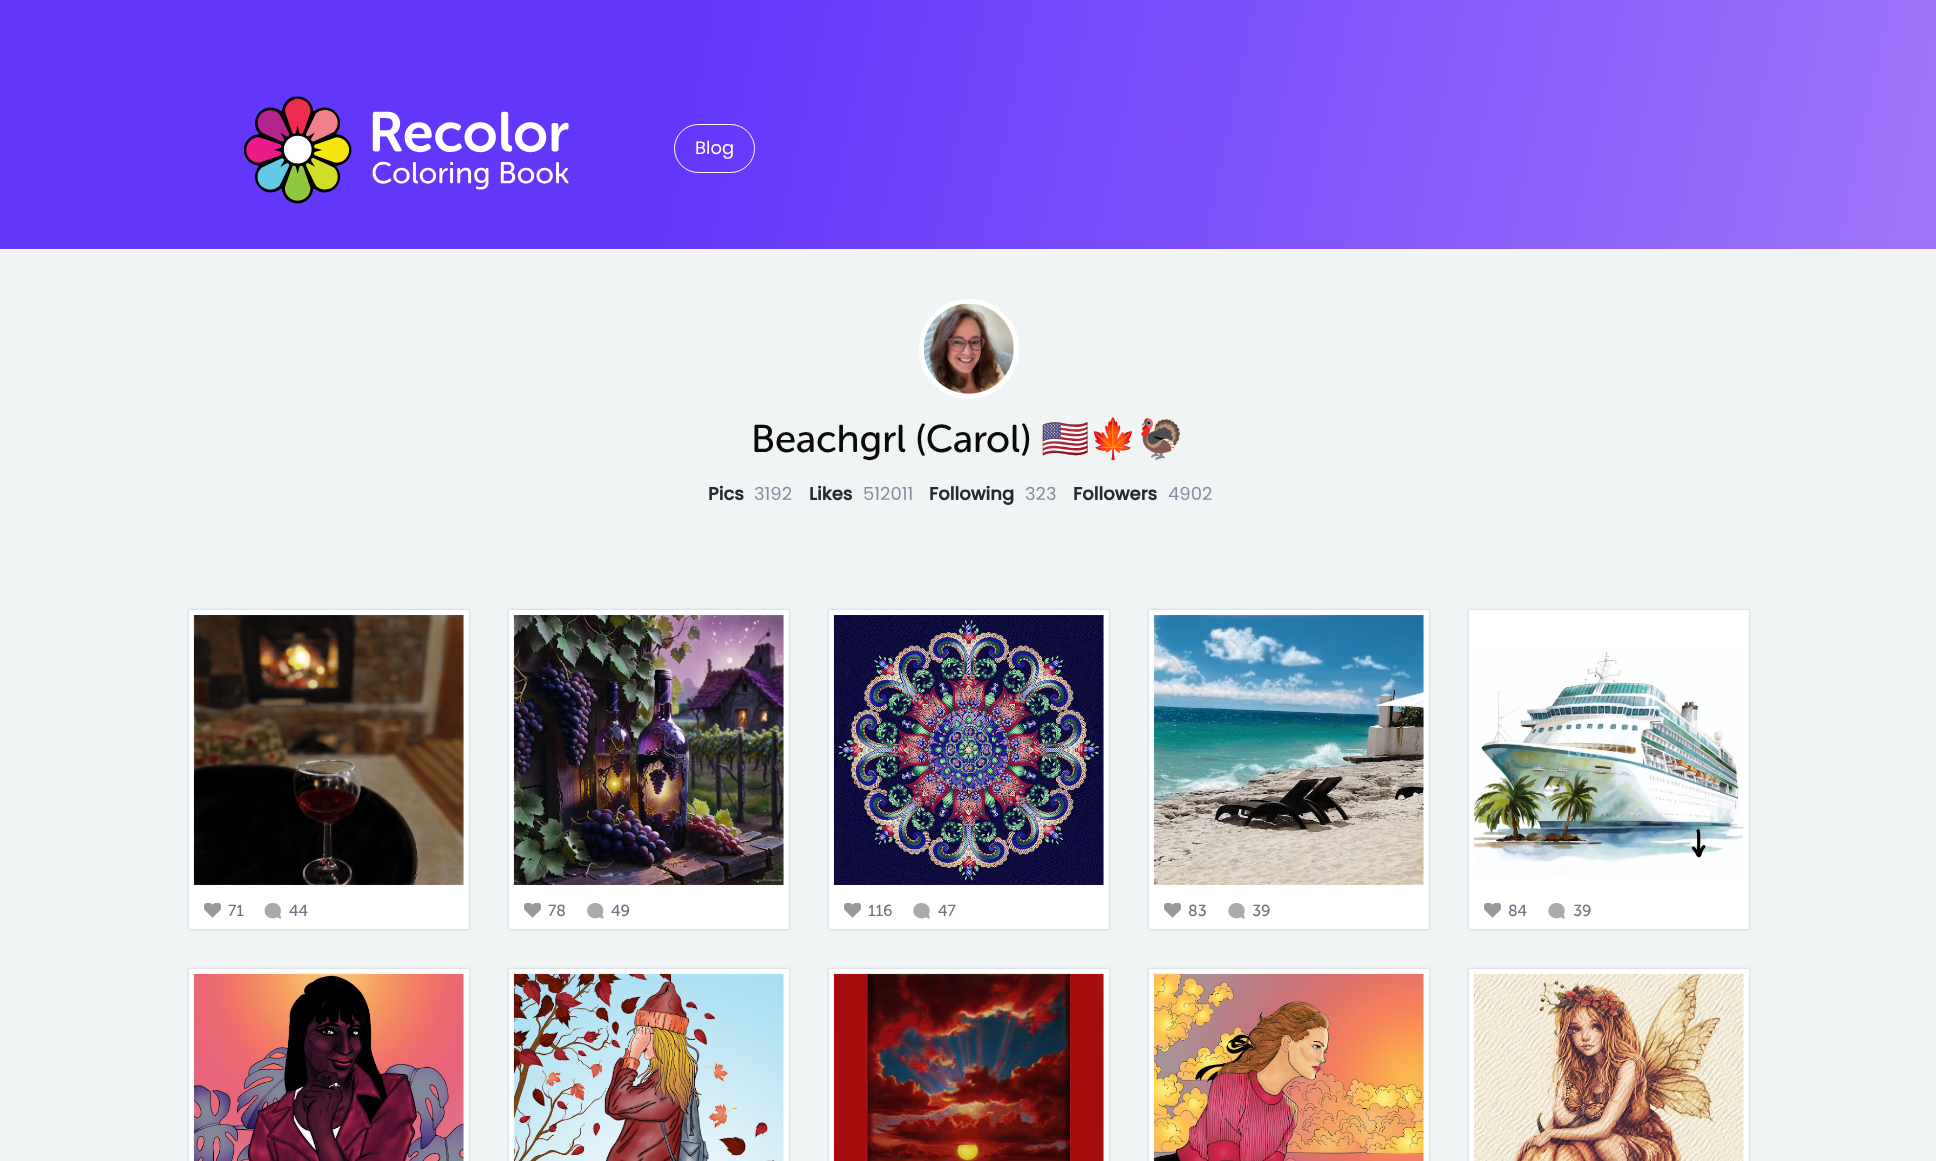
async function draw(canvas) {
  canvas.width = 1936
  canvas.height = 1161
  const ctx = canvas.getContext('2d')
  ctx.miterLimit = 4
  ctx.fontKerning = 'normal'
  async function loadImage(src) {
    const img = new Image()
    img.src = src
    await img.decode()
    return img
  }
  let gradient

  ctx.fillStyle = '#f1f4f5'
  ctx.fillRect(0, 0, 1936, 1161)
  gradient = ctx.createLinearGradient(17, -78, 1920, 327)
  gradient.addColorStop(0.35, '#6336fc')
  gradient.addColorStop(1, '#a075f8')
  ctx.fillStyle = gradient
  ctx.fillRect(0, 0, 1936, 249)
  ctx.drawImage(await loadImage('image0.png'), 244, 96, 325, 108)
  ctx.beginPath()
  ctx.roundRect(674.5, 124.5, 80, 48, 24)
  ctx.strokeStyle = '#fff'
  ctx.stroke()
  ctx.font = '18px Poppins'
  ctx.fillStyle = '#fff'
  ctx.fillText('Blog', 695, 154)
  ctx.beginPath()
  ctx.arc(969, 349, 47.5, 0, 2 * Math.PI)
  ctx.lineWidth = 5
  ctx.stroke()
  ctx.drawImage(await loadImage('image1.png'), 923, 304, 91, 90)
  ctx.font = '38.75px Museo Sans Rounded'
  ctx.fillStyle = '#0a0a0a'
  ctx.fillText('Beachgrl (Carol)', 751, 452)
  ctx.font = '38.75px Noto Color Emoji'
  ctx.fillText('🇺🇸🍁🦃', 1041, 452)
  ctx.font = 'bold 18px Poppins'
  ctx.fillStyle = '#272a31'
  ctx.fillText('Pics', 708, 500)
  ctx.font = '18px Poppins'
  ctx.fillStyle = '#868d9e'
  ctx.fillText('3192', 754, 500)
  ctx.font = 'bold 18px Poppins'
  ctx.fillStyle = '#272a31'
  ctx.fillText('Likes', 809, 500)
  ctx.font = '18px Poppins'
  ctx.fillStyle = '#868d9e'
  ctx.fillText('512011', 863, 500)
  ctx.font = 'bold 18px Poppins'
  ctx.fillStyle = '#272a31'
  ctx.fillText('Following', 929, 500)
  ctx.font = '18px Poppins'
  ctx.fillStyle = '#868d9e'
  ctx.fillText('323', 1025, 500)
  ctx.font = 'bold 18px Poppins'
  ctx.fillStyle = '#272a31'
  ctx.fillText('Followers', 1073, 500)
  ctx.font = '18px Poppins'
  ctx.fillStyle = '#868d9e'
  ctx.fillText('4902', 1168, 500)
  ctx.fillStyle = '#0e33651a'
  ctx.filter = 'blur(1px)'
  ctx.beginPath()
  ctx.roundRect(188, 609, 282, 321, 2.5)
  ctx.fill()
  ctx.filter = 'none'
  ctx.fillStyle = '#fff'
  ctx.beginPath()
  ctx.roundRect(188.5, 609.5, 281, 320, 2)
  ctx.fill()
  ctx.strokeStyle = '#e0e2e7'
  ctx.lineWidth = 1
  ctx.stroke()
  ctx.drawImage(await loadImage('image2.png'), 193, 615, 271, 270)
  ctx.drawImage(await loadImage('image3.png'), 204, 903, 17, 15)
  ctx.font = '16px Museo Sans Rounded'
  ctx.fillStyle = '#6b7386'
  ctx.fillText('71', 228, 916)
  ctx.drawImage(await loadImage('image4.png'), 264, 903, 17, 16)
  ctx.fillText('44', 289, 916)
  ctx.fillStyle = '#0e33651a'
  ctx.filter = 'blur(1px)'
  ctx.beginPath()
  ctx.roundRect(508, 609, 282, 321, 2.5)
  ctx.fill()
  ctx.filter = 'none'
  ctx.fillStyle = '#fff'
  ctx.beginPath()
  ctx.roundRect(508.5, 609.5, 281, 320, 2)
  ctx.fill()
  ctx.stroke()
  ctx.drawImage(await loadImage('image5.png'), 513, 615, 271, 270)
  ctx.drawImage(await loadImage('image3.png'), 524, 903, 17, 15)
  ctx.fillStyle = '#6b7386'
  ctx.fillText('78', 548, 916)
  ctx.drawImage(await loadImage('image6.png'), 587, 903, 17, 16)
  ctx.fillText('49', 611, 916)
  ctx.fillStyle = '#0e33651a'
  ctx.filter = 'blur(1px)'
  ctx.beginPath()
  ctx.roundRect(828, 609, 282, 321, 2.5)
  ctx.fill()
  ctx.filter = 'none'
  ctx.fillStyle = '#fff'
  ctx.beginPath()
  ctx.roundRect(828.5, 609.5, 281, 320, 2)
  ctx.fill()
  ctx.stroke()
  ctx.drawImage(await loadImage('image7.png'), 833, 615, 271, 270)
  ctx.drawImage(await loadImage('image3.png'), 844, 903, 17, 15)
  ctx.fillStyle = '#6b7386'
  ctx.fillText('116', 868, 916)
  ctx.drawImage(await loadImage('image8.png'), 913, 903, 17, 16)
  ctx.fillText('47', 938, 916)
  ctx.fillStyle = '#0e33651a'
  ctx.filter = 'blur(1px)'
  ctx.beginPath()
  ctx.roundRect(1148, 609, 282, 321, 2.5)
  ctx.fill()
  ctx.filter = 'none'
  ctx.fillStyle = '#fff'
  ctx.beginPath()
  ctx.roundRect(1148.5, 609.5, 281, 320, 2)
  ctx.fill()
  ctx.stroke()
  ctx.drawImage(await loadImage('image9.png'), 1153, 615, 271, 270)
  ctx.drawImage(await loadImage('image3.png'), 1164, 903, 17, 15)
  ctx.fillStyle = '#6b7386'
  ctx.fillText('83', 1188, 916)
  ctx.drawImage(await loadImage('image8.png'), 1228, 903, 17, 16)
  ctx.fillText('39', 1252, 916)
  ctx.fillStyle = '#0e33651a'
  ctx.filter = 'blur(1px)'
  ctx.beginPath()
  ctx.roundRect(1468, 609, 282, 321, 2.5)
  ctx.fill()
  ctx.filter = 'none'
  ctx.fillStyle = '#fff'
  ctx.beginPath()
  ctx.roundRect(1468.5, 609.5, 281, 320, 2)
  ctx.fill()
  ctx.stroke()
  ctx.drawImage(await loadImage('image10.png'), 1473, 650, 271, 225)
  ctx.drawImage(await loadImage('image3.png'), 1484, 903, 17, 15)
  ctx.fillStyle = '#6b7386'
  ctx.fillText('84', 1508, 916)
  ctx.drawImage(await loadImage('image8.png'), 1548, 903, 17, 16)
  ctx.fillText('39', 1573, 916)
  ctx.fillStyle = '#0e33651a'
  ctx.filter = 'blur(1px)'
  ctx.beginPath()
  ctx.roundRect(188, 968, 282, 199, 2.5)
  ctx.fill()
  ctx.filter = 'none'
  ctx.fillStyle = '#fff'
  ctx.beginPath()
  ctx.roundRect(188.5, 968.5, 281, 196, 2)
  ctx.fill()
  ctx.stroke()
  ctx.drawImage(await loadImage('image11.png'), 193, 973, 271, 188)
  ctx.fillStyle = '#0e33651a'
  ctx.filter = 'blur(1px)'
  ctx.beginPath()
  ctx.roundRect(508, 968, 282, 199, 2.5)
  ctx.fill()
  ctx.filter = 'none'
  ctx.fillStyle = '#fff'
  ctx.beginPath()
  ctx.roundRect(508.5, 968.5, 281, 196, 2)
  ctx.fill()
  ctx.stroke()
  ctx.drawImage(await loadImage('image12.png'), 513, 973, 271, 188)
  ctx.fillStyle = '#0e33651a'
  ctx.filter = 'blur(1px)'
  ctx.beginPath()
  ctx.roundRect(828, 968, 282, 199, 2.5)
  ctx.fill()
  ctx.filter = 'none'
  ctx.fillStyle = '#fff'
  ctx.beginPath()
  ctx.roundRect(828.5, 968.5, 281, 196, 2)
  ctx.fill()
  ctx.stroke()
  ctx.drawImage(await loadImage('image13.png'), 833, 973, 271, 188)
  ctx.fillStyle = '#0e33651a'
  ctx.filter = 'blur(1px)'
  ctx.beginPath()
  ctx.roundRect(1148, 968, 282, 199, 2.5)
  ctx.fill()
  ctx.filter = 'none'
  ctx.fillStyle = '#fff'
  ctx.beginPath()
  ctx.roundRect(1148.5, 968.5, 281, 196, 2)
  ctx.fill()
  ctx.stroke()
  ctx.drawImage(await loadImage('image14.png'), 1153, 973, 271, 188)
  ctx.fillStyle = '#0e33651a'
  ctx.filter = 'blur(1px)'
  ctx.beginPath()
  ctx.roundRect(1468, 968, 282, 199, 2.5)
  ctx.fill()
  ctx.filter = 'none'
  ctx.fillStyle = '#fff'
  ctx.beginPath()
  ctx.roundRect(1468.5, 968.5, 281, 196, 2)
  ctx.fill()
  ctx.stroke()
  ctx.drawImage(await loadImage('image15.png'), 1474, 973, 270, 188)
}

draw(document.querySelector('canvas'))
